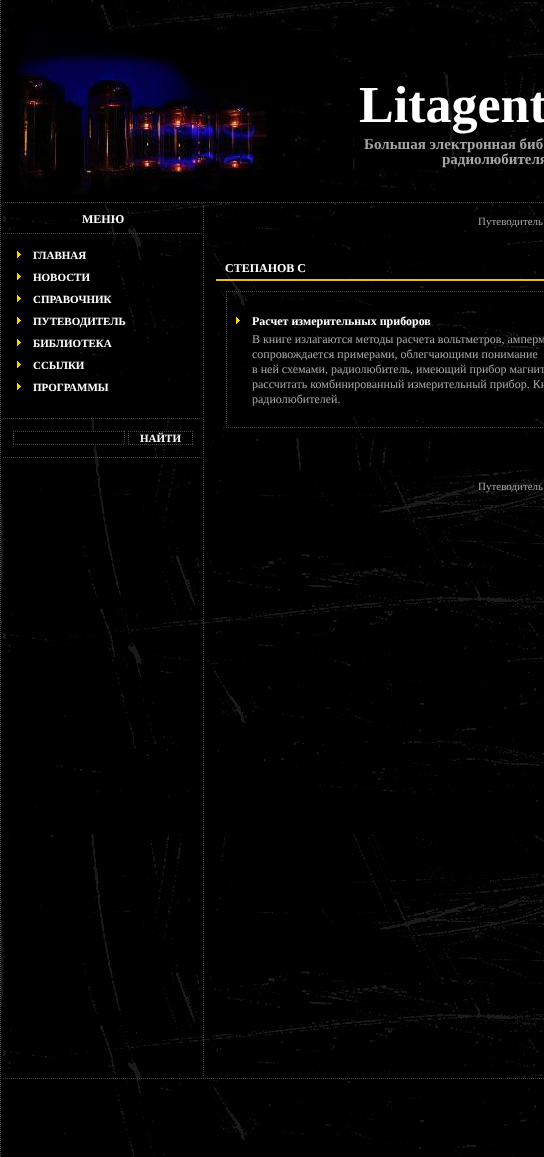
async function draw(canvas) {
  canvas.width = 544
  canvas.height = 1157
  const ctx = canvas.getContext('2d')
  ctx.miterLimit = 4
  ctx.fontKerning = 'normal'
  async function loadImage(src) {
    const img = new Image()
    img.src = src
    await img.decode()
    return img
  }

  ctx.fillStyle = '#fff'
  ctx.fillRect(0, 0, 544, 1157)
  ctx.drawImage(await loadImage('image0.png'), 0, 0, 544, 1157)
  ctx.beginPath()
  ctx.moveTo(0.5, 0)
  ctx.lineTo(0.5, 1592)
  ctx.strokeStyle = '#454545'
  ctx.setLineDash([1, 1])
  ctx.stroke()
  ctx.drawImage(await loadImage('image1.png'), 3, 2, 541, 201)
  ctx.beginPath()
  ctx.moveTo(3, 202.5)
  ctx.lineTo(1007, 202.5)
  ctx.stroke()
  ctx.drawImage(await loadImage('image2.png'), 353, 72, 191, 97)
  ctx.drawImage(await loadImage('image3.png'), 359, 74, 184, 61)
  ctx.font = 'bold 52px Liberation Serif'
  ctx.fillText('Litagent', 359, 122)
  ctx.font = 'bold 15px Liberation Serif'
  ctx.fillStyle = '#a5a5a5'
  ctx.fillText('Большая электронная биб', 364, 149)
  ctx.fillText('радиолюбителя', 442, 164)
  ctx.beginPath()
  ctx.moveTo(203.5, 205)
  ctx.lineTo(203.5, 1076)
  ctx.stroke()
  ctx.beginPath()
  ctx.moveTo(3, 233.5)
  ctx.lineTo(203, 233.5)
  ctx.stroke()
  ctx.font = 'bold 12px Liberation Serif'
  ctx.fillStyle = '#fff'
  ctx.fillText('МЕНЮ', 82, 223)
  ctx.drawImage(await loadImage('image4.png'), 17, 251, 4, 7)
  ctx.font = 'bold 11px Liberation Serif'
  ctx.fillText('ГЛАВНАЯ', 33, 259)
  ctx.drawImage(await loadImage('image4.png'), 17, 273, 4, 7)
  ctx.fillText('НОВОСТИ', 33, 281)
  ctx.drawImage(await loadImage('image4.png'), 17, 295, 4, 7)
  ctx.fillText('СПРАВОЧНИК', 33, 303)
  ctx.drawImage(await loadImage('image4.png'), 17, 317, 4, 7)
  ctx.fillText('ПУТЕВОДИТЕЛЬ', 33, 325)
  ctx.drawImage(await loadImage('image4.png'), 17, 339, 4, 7)
  ctx.fillText('БИБЛИОТЕКА', 33, 347)
  ctx.drawImage(await loadImage('image4.png'), 17, 361, 4, 7)
  ctx.fillText('ССЫЛКИ', 33, 369)
  ctx.drawImage(await loadImage('image5.png'), 17, 383, 4, 7)
  ctx.fillText('ПРОГРАММЫ', 33, 391)
  ctx.beginPath()
  ctx.moveTo(3, 418.5)
  ctx.lineTo(203, 418.5)
  ctx.stroke()
  ctx.fillStyle = '#000'
  ctx.fillRect(49, 431, 54, 14)
  ctx.beginPath()
  ctx.moveTo(13, 431.5)
  ctx.lineTo(125, 431.5)
  ctx.stroke()
  ctx.beginPath()
  ctx.moveTo(124.5, 431)
  ctx.lineTo(124.5, 445)
  ctx.stroke()
  ctx.beginPath()
  ctx.moveTo(13, 444.5)
  ctx.lineTo(125, 444.5)
  ctx.stroke()
  ctx.beginPath()
  ctx.moveTo(13.5, 431)
  ctx.lineTo(13.5, 445)
  ctx.stroke()
  ctx.fillRect(142, 431, 49, 14)
  ctx.beginPath()
  ctx.moveTo(128, 431.5)
  ctx.lineTo(193, 431.5)
  ctx.stroke()
  ctx.beginPath()
  ctx.moveTo(192.5, 431)
  ctx.lineTo(192.5, 445)
  ctx.stroke()
  ctx.beginPath()
  ctx.moveTo(128, 444.5)
  ctx.lineTo(193, 444.5)
  ctx.stroke()
  ctx.beginPath()
  ctx.moveTo(128.5, 431)
  ctx.lineTo(128.5, 445)
  ctx.stroke()
  ctx.fillStyle = '#fff'
  ctx.fillText('НАЙТИ', 140, 442)
  ctx.beginPath()
  ctx.moveTo(3, 457.5)
  ctx.lineTo(203, 457.5)
  ctx.stroke()
  ctx.font = '11px Liberation Serif'
  ctx.fillStyle = '#a5a5a5'
  ctx.fillText('Путеводитель', 478, 225)
  ctx.fillStyle = '#eabd1d'
  ctx.fillRect(216, 279, 328, 2)
  ctx.font = 'bold 12px Liberation Serif'
  ctx.fillStyle = '#fff'
  ctx.fillText('СТЕПАНОВ С', 225, 272)
  ctx.beginPath()
  ctx.moveTo(226, 291.5)
  ctx.lineTo(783, 291.5)
  ctx.stroke()
  ctx.beginPath()
  ctx.moveTo(226, 427.5)
  ctx.lineTo(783, 427.5)
  ctx.stroke()
  ctx.beginPath()
  ctx.moveTo(226.5, 291)
  ctx.lineTo(226.5, 428)
  ctx.stroke()
  ctx.drawImage(await loadImage('image4.png'), 236, 317, 4, 7)
  ctx.fillText('Расчет измерительных приборов', 252, 325)
  ctx.font = '12px Liberation Serif'
  ctx.fillStyle = '#a5a5a5'
  ctx.fillText('В книге излагаются методы расчета вольтметров, амперм', 252, 343)
  ctx.fillText('сопровождается примерами, облегчающими понимание', 252, 358)
  ctx.fillText('в ней схемами, радиолюбитель, имеющий прибор магнит', 252, 373)
  ctx.fillText('рассчитать комбинированный измерительный прибор. Кн', 252, 388)
  ctx.fillText('радиолюбителей.', 252, 403)
  ctx.drawImage(await loadImage('image6.png'), 212, 438, 332, 32)
  ctx.font = '11px Liberation Serif'
  ctx.fillText('Путеводитель', 478, 490)
  ctx.beginPath()
  ctx.moveTo(3, 1078.5)
  ctx.lineTo(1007, 1078.5)
  ctx.stroke()
}

draw(document.querySelector('canvas'))
